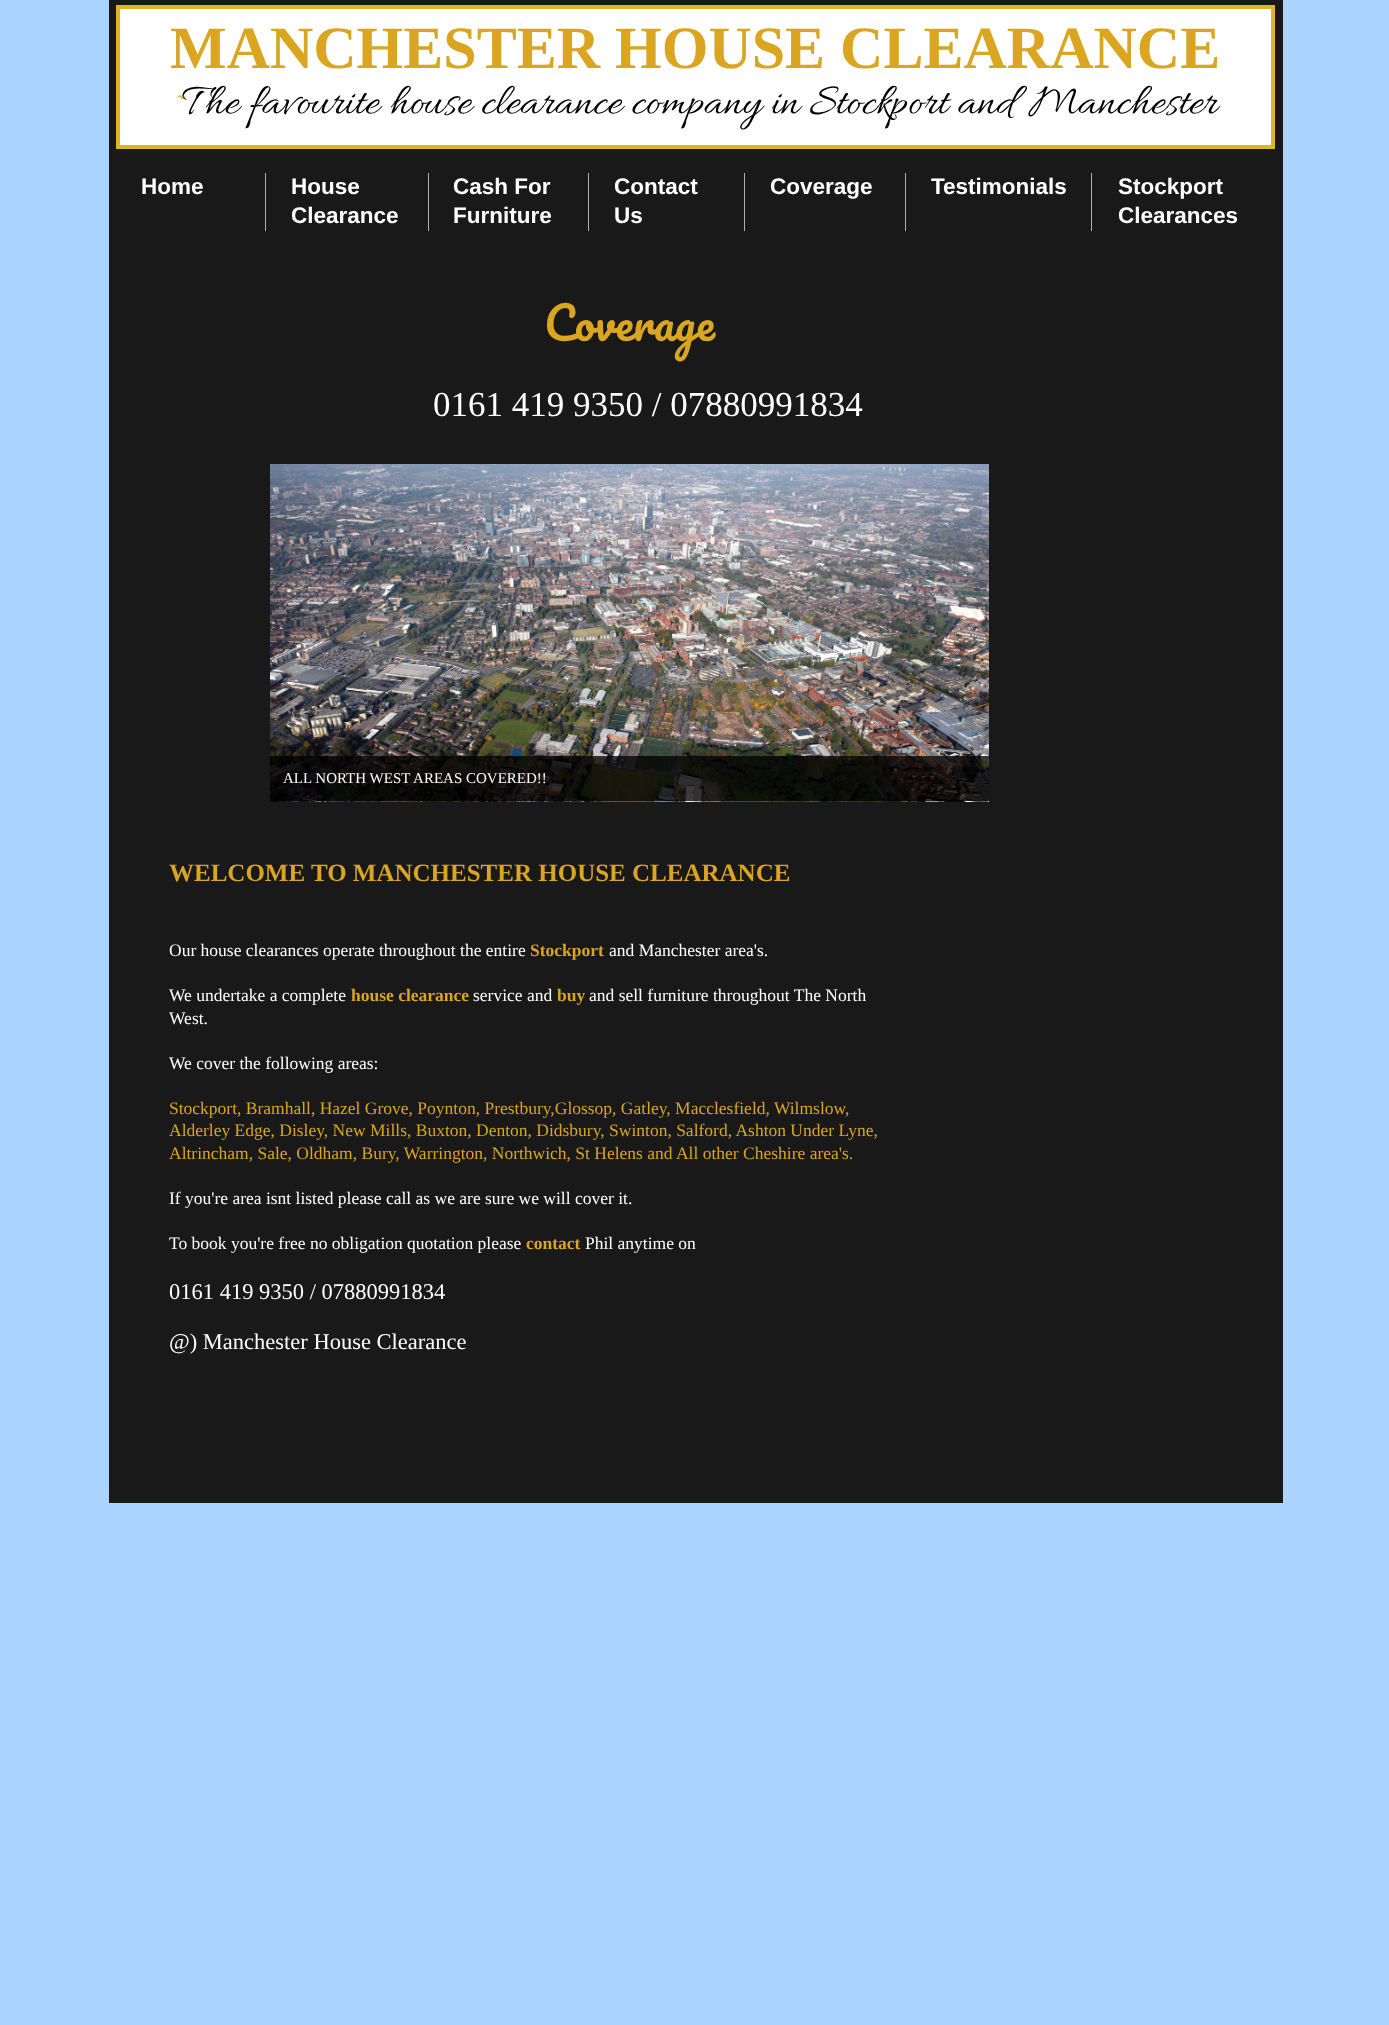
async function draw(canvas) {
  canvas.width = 1389
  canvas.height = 2025
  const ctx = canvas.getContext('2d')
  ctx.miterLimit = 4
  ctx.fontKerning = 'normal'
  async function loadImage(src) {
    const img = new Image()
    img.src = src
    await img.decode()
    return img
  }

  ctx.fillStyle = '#aad4ff'
  ctx.fillRect(0, 0, 1389, 2025)
  ctx.fillStyle = '#191919'
  ctx.fillRect(109, 0, 1174, 1503)
  ctx.fillStyle = '#fff'
  ctx.beginPath()
  ctx.rect(118, 7, 1155, 140)
  ctx.fill()
  ctx.strokeStyle = '#ddb525'
  ctx.lineWidth = 4
  ctx.stroke()
  ctx.font = 'bold 60px Liberation Serif'
  ctx.fillStyle = '#daa520'
  ctx.fillText('MANCHESTER HOUSE CLEARANCE', 170, 68)
  ctx.font = 'italic 35px Love Ya Like A Sister'
  ctx.fillText('~', 173, 113)
  ctx.font = '45px Allura'
  ctx.fillStyle = '#000'
  ctx.fillText('The favourite house clearance company in Stockport and Manchester', 182, 113)
  ctx.fillStyle = '#aeaeae'
  ctx.fillRect(265, 173, 1, 58)
  ctx.font = 'bold 22.5px Liberation Sans'
  ctx.fillStyle = '#fff'
  ctx.fillText('Home', 141, 194)
  ctx.fillStyle = '#aeaeae'
  ctx.fillRect(428, 173, 1, 58)
  ctx.fillStyle = '#fff'
  ctx.fillText('House', 291, 194)
  ctx.fillText('Clearance', 291, 223)
  ctx.fillStyle = '#aeaeae'
  ctx.fillRect(588, 173, 1, 58)
  ctx.fillStyle = '#fff'
  ctx.fillText('Cash For', 453, 194)
  ctx.fillText('Furniture', 453, 223)
  ctx.fillStyle = '#aeaeae'
  ctx.fillRect(744, 173, 1, 58)
  ctx.fillStyle = '#fff'
  ctx.fillText('Contact', 614, 194)
  ctx.fillText('Us', 614, 223)
  ctx.fillStyle = '#aeaeae'
  ctx.fillRect(905, 173, 1, 58)
  ctx.fillStyle = '#fff'
  ctx.fillText('Coverage', 770, 194)
  ctx.fillStyle = '#aeaeae'
  ctx.fillRect(1091, 173, 1, 58)
  ctx.fillStyle = '#fff'
  ctx.fillText('Testimonials', 931, 194)
  ctx.fillText('Stockport', 1118, 194)
  ctx.fillText('Clearances', 1118, 223)
  ctx.font = '45px Pacifico'
  ctx.fillStyle = '#daa520'
  ctx.fillText('Coverage', 544, 341)
  ctx.font = '35px Liberation Serif'
  ctx.fillStyle = '#fff'
  ctx.fillText('0161 419 9350 / 07880991834', 433, 416)
  ctx.drawImage(await loadImage('image0.png'), 270, 464, 719, 338)
  ctx.fillStyle = '#000000bf'
  ctx.fillRect(270, 756, 719, 45)
  ctx.font = '15px Liberation Serif'
  ctx.fillStyle = '#fff'
  ctx.fillText('ALL NORTH WEST AREAS COVERED!!', 283, 783)
  ctx.font = 'bold 25px Liberation Serif'
  ctx.fillStyle = '#daa520'
  ctx.fillText('WELCOME TO MANCHESTER HOUSE CLEARANCE', 169, 881)
  ctx.font = '17.5px Liberation Serif'
  ctx.fillStyle = '#fff'
  ctx.fillText('Our house clearances operate throughout the entire', 169, 956)
  ctx.font = 'bold 17.5px Liberation Serif'
  ctx.fillStyle = '#daa520'
  ctx.fillText('Stockport', 530, 956)
  ctx.font = '17.5px Liberation Serif'
  ctx.fillStyle = '#fff'
  ctx.fillText('and Manchester area\'s.', 609, 956)
  ctx.fillText('We undertake a complete', 169, 1001)
  ctx.font = 'bold 17.5px Liberation Serif'
  ctx.fillStyle = '#daa520'
  ctx.fillText('house clearance', 351, 1001)
  ctx.font = '17.5px Liberation Serif'
  ctx.fillStyle = '#fff'
  ctx.fillText('service and', 473, 1001)
  ctx.font = 'bold 17.5px Liberation Serif'
  ctx.fillStyle = '#daa520'
  ctx.fillText('buy', 557, 1001)
  ctx.font = '17.5px Liberation Serif'
  ctx.fillStyle = '#fff'
  ctx.fillText('and sell furniture throughout The North', 589, 1001)
  ctx.fillText('West.', 169, 1024)
  ctx.fillText('We cover the following areas:', 169, 1069)
  ctx.fillStyle = '#daa520'
  ctx.fillText('Stockport, Bramhall, Hazel Grove, Poynton, Prestbury,Glossop, Gatley, Macclesfield, Wilmslow,', 169, 1114)
  ctx.fillText('Alderley Edge, Disley, New Mills, Buxton, Denton, Didsbury, Swinton, Salford, Ashton Under Lyne,', 169, 1136)
  ctx.fillText('Altrincham, Sale, Oldham, Bury, Warrington, Northwich, St Helens and All other Cheshire area\'s.', 169, 1159)
  ctx.fillStyle = '#fff'
  ctx.fillText('If you\'re area isnt listed please call as we are sure we will cover it.', 169, 1204)
  ctx.fillText('To book you\'re free no obligation quotation please', 169, 1249)
  ctx.font = 'bold 17.5px Liberation Serif'
  ctx.fillStyle = '#daa520'
  ctx.fillText('contact', 526, 1249)
  ctx.font = '17.5px Liberation Serif'
  ctx.fillStyle = '#fff'
  ctx.fillText('Phil anytime on', 585, 1249)
  ctx.font = '22.5px Liberation Serif'
  ctx.fillText('0161 419 9350 / 07880991834', 169, 1299)
  ctx.fillText('@) Manchester House Clearance', 169, 1349)
}

draw(document.querySelector('canvas'))
